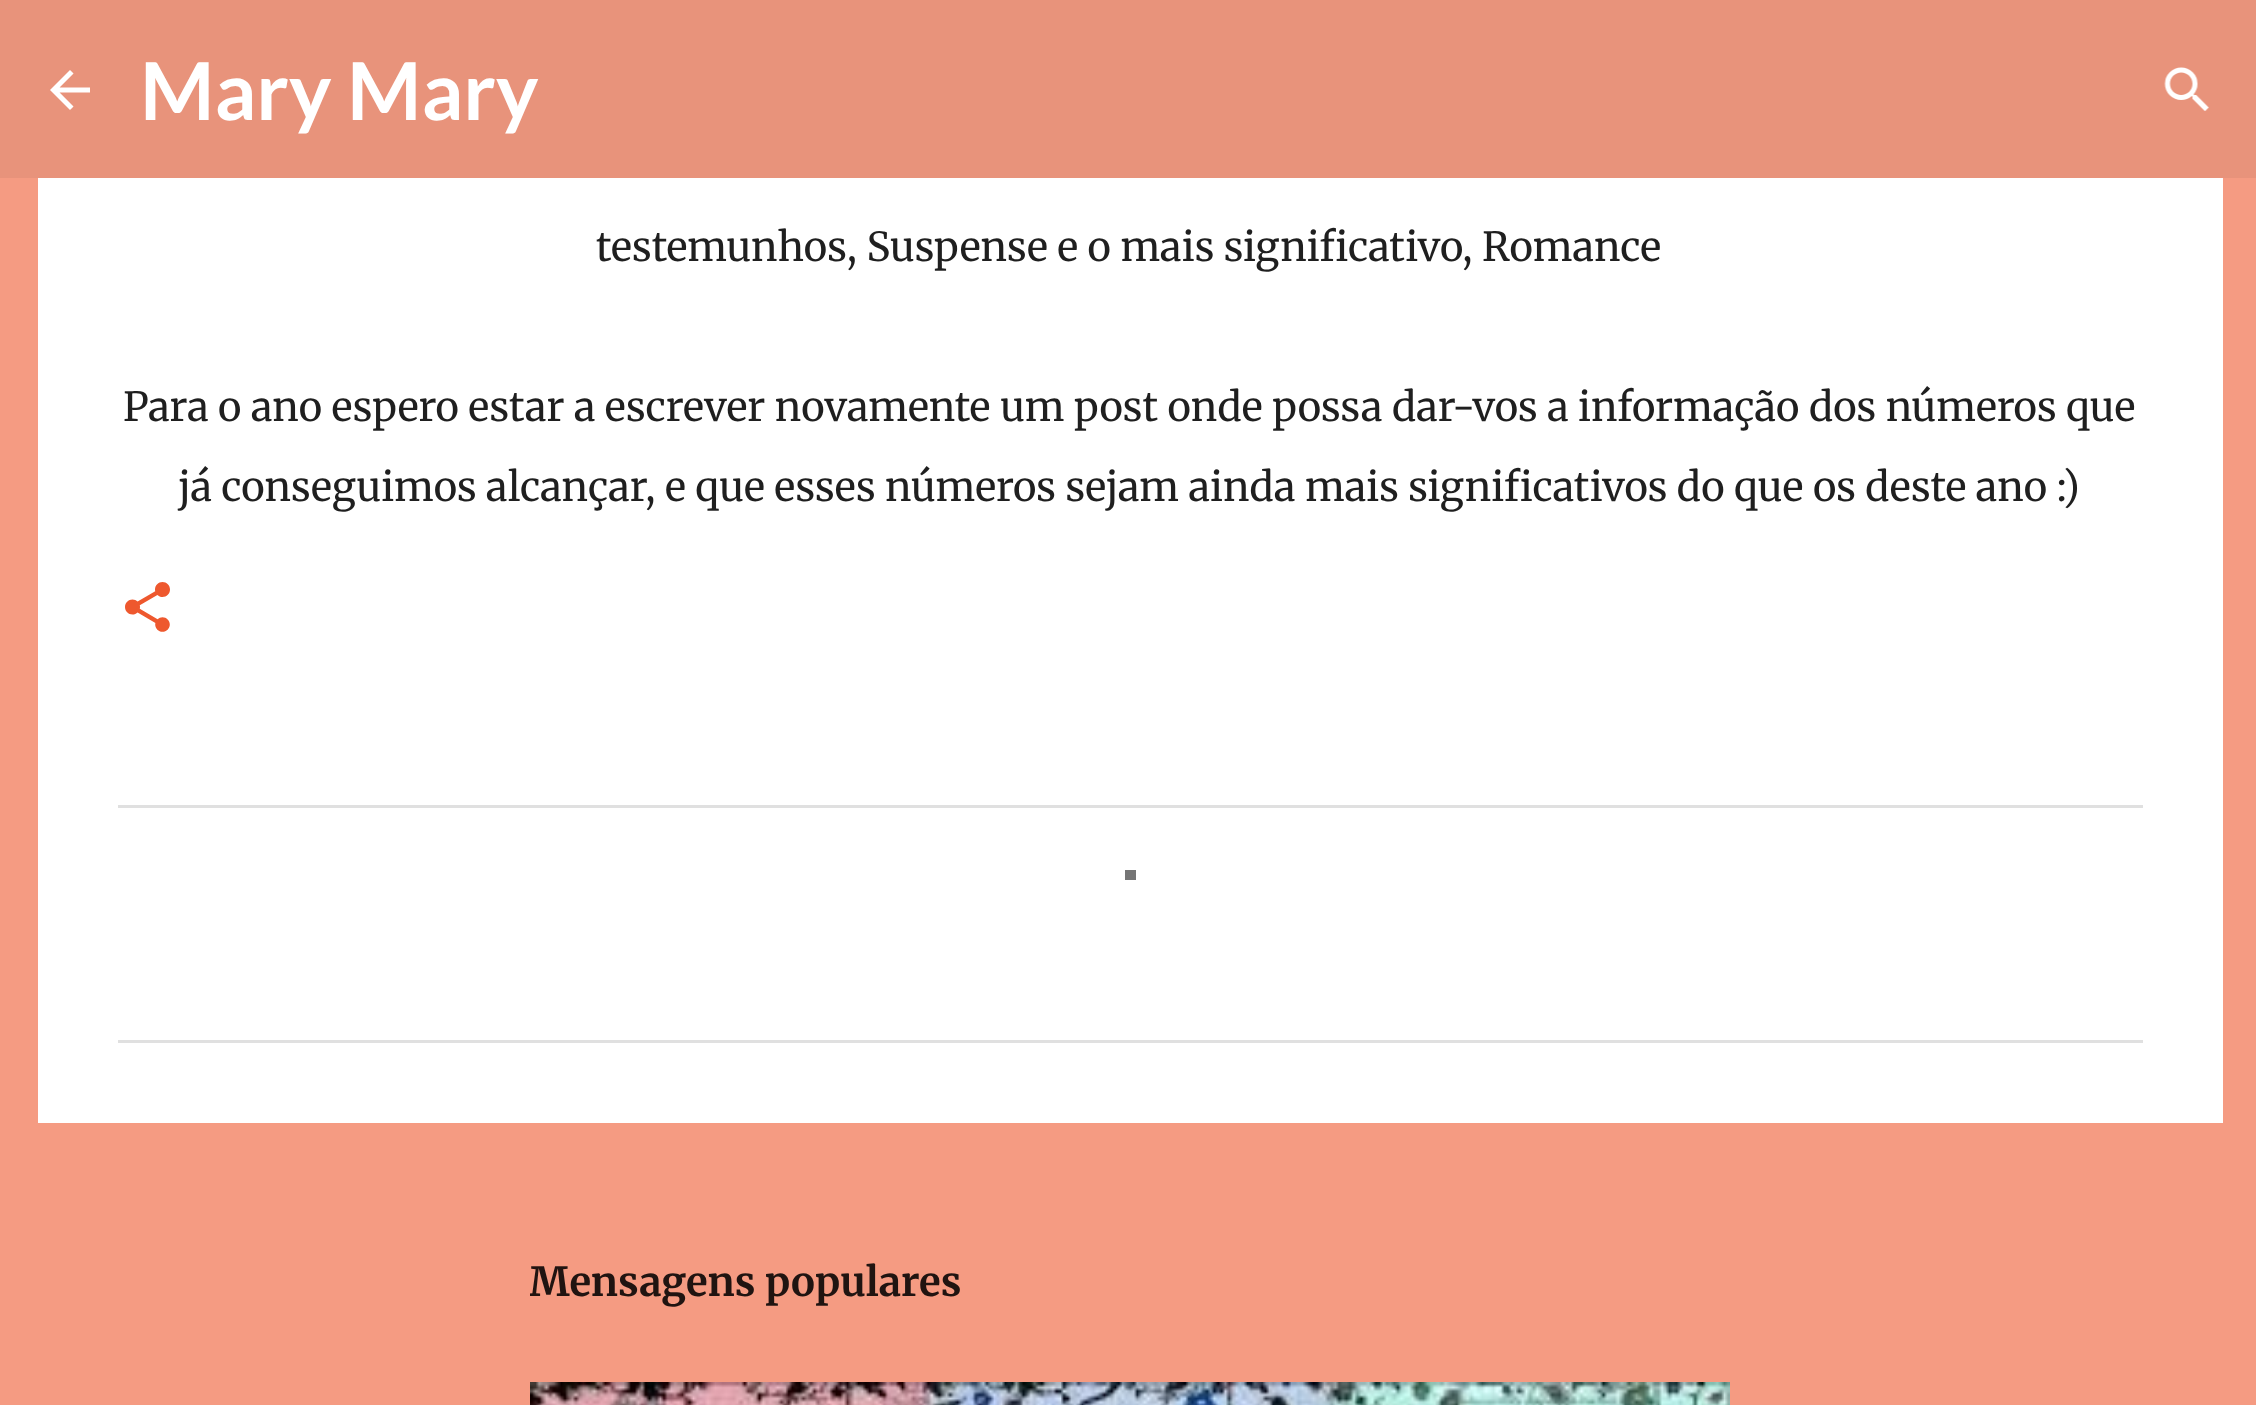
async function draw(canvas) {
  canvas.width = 2256
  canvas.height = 1405
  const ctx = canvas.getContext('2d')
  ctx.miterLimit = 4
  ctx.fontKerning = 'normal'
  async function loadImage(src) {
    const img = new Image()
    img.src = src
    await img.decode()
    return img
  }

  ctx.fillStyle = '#f59b82'
  ctx.fillRect(0, 0, 2256, 1405)
  ctx.fillStyle = '#e8937b'
  ctx.fillRect(0, 0, 2256, 178)
  ctx.drawImage(await loadImage('image0.png'), 50, 70, 40, 40)
  ctx.font = 'bold 80px Lato'
  ctx.fillStyle = '#fff'
  ctx.fillText('Mary Mary', 140, 120)
  ctx.drawImage(await loadImage('image1.png'), 2164, 67, 45, 44)
  ctx.fillRect(38, 178, 2185, 945)
  ctx.fillStyle = '#e0e0e0'
  ctx.fillRect(118, 805, 2025, 3)
  ctx.fillRect(118, 1040, 2025, 3)
  ctx.font = '40px Merriweather'
  ctx.fillStyle = '#1f1f1f'
  ctx.fillText('testemunhos, Suspense e o mais significativo, Romance', 596, 261)
  ctx.fillText('Para o ano espero estar a escrever novamente um post onde possa dar-vos a informação dos números que', 123, 421)
  ctx.fillText('já conseguimos alcançar, e que esses números sejam ainda mais significativos do que os deste ano :)', 178, 501)
  ctx.drawImage(await loadImage('image2.png'), 125, 582, 45, 50)
  ctx.save()
  ctx.beginPath()
  ctx.rect(530, 1220, 1200, 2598)
  ctx.clip()
  ctx.font = 'bold 40px Merriweather'
  ctx.fillStyle = '#201411'
  ctx.fillText('Mensagens populares', 529, 1296)
  ctx.restore()
  ctx.drawImage(await loadImage('image3.png'), 530, 1382, 1200, 23)
  ctx.fillStyle = '#757575'
  ctx.fillRect(1125, 870, 11, 10)
}

draw(document.querySelector('canvas'))
